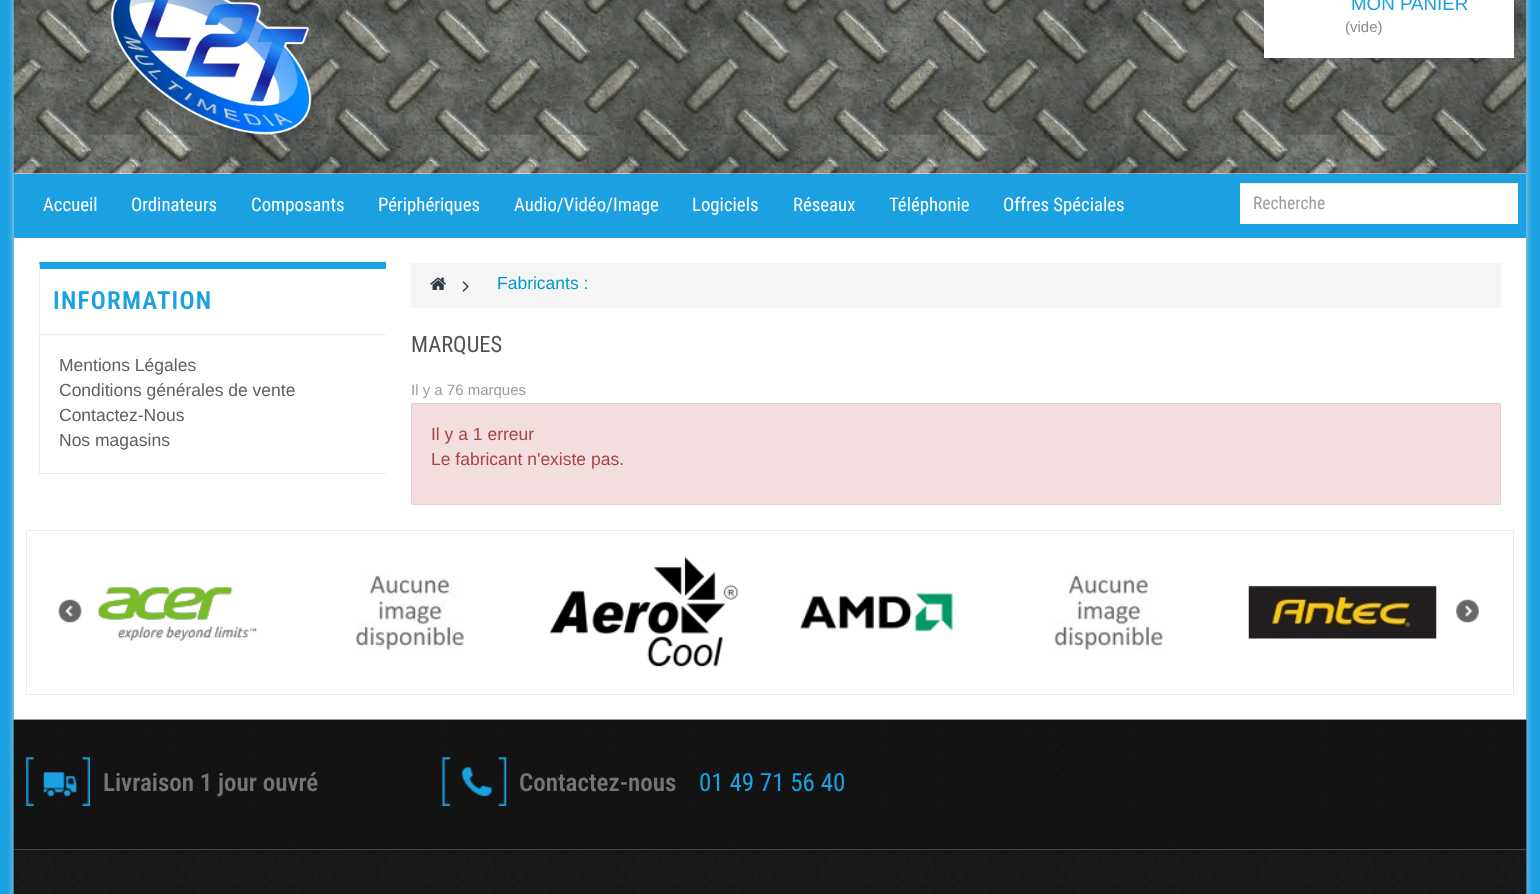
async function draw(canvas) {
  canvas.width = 1540
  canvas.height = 894
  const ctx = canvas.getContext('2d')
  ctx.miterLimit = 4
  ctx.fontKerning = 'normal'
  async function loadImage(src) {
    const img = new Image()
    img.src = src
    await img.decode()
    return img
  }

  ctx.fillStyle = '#1ba1e2'
  ctx.fillRect(0, 0, 1540, 894)
  ctx.fillStyle = '#d5d5d5'
  ctx.filter = 'blur(3px)'
  ctx.beginPath()
  ctx.rect(14, -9, 1512, 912)
  ctx.fill()
  ctx.filter = 'none'
  ctx.fillStyle = '#fff'
  ctx.fillRect(14, 173, 1512, 547)
  ctx.drawImage(await loadImage('image0.png'), 13, 0, 1514, 174)
  ctx.drawImage(await loadImage('image1.png'), 110, 0, 202, 135)
  ctx.fillRect(1264, 0, 250, 58)
  ctx.font = '18.75px Liberation Sans'
  ctx.fillStyle = '#1ba1e2'
  ctx.fillText('MON PANIER', 1351, 10)
  ctx.font = '15px Liberation Sans'
  ctx.fillStyle = '#8c8c8c'
  ctx.fillText('(vide)', 1345, 32)
  ctx.fillStyle = '#1ba1e2'
  ctx.fillRect(14, 174, 1512, 64)
  ctx.font = '18.75px Roboto Condensed'
  ctx.fillStyle = '#fff'
  ctx.fillText('Accueil', 43, 211)
  ctx.fillText('Ordinateurs', 131, 211)
  ctx.fillText('Composants', 251, 211)
  ctx.fillText('Périphériques', 378, 211)
  ctx.fillText('Audio/Vidéo/Image', 514, 211)
  ctx.fillText('Logiciels', 692, 211)
  ctx.fillText('Réseaux', 793, 211)
  ctx.fillText('Téléphonie', 889, 211)
  ctx.fillText('Offres Spéciales', 1003, 211)
  ctx.fillRect(1240, 184, 278, 40)
  ctx.fillStyle = '#ececec'
  ctx.fillRect(1240, 183, 278, 1)
  ctx.font = '17.5px Roboto Condensed'
  ctx.fillStyle = '#9c9c9c'
  ctx.fillText('Recherche', 1253, 209)
  ctx.fillStyle = '#1ba1e2'
  ctx.beginPath()
  ctx.moveTo(39, 262)
  ctx.lineTo(386, 262)
  ctx.lineTo(386, 269)
  ctx.lineTo(40, 269)
  ctx.closePath()
  ctx.fill()
  ctx.fillStyle = '#eee'
  ctx.fillRect(39, 334, 347, 1)
  ctx.beginPath()
  ctx.moveTo(39, 335)
  ctx.lineTo(39, 262)
  ctx.lineTo(40, 269)
  ctx.lineTo(40, 334)
  ctx.closePath()
  ctx.fill()
  ctx.letterSpacing = '1.25px'
  ctx.font = '600 25px Roboto Condensed'
  ctx.fillStyle = '#1ba1e2'
  ctx.fillText('INFORMATION', 53, 309)
  ctx.fillStyle = '#ebebeb'
  ctx.fillRect(39, 473, 347, 1)
  ctx.fillRect(39, 335, 1, 139)
  ctx.letterSpacing = '0px'
  ctx.font = '17.5px Liberation Sans'
  ctx.fillStyle = '#5f5f5f'
  ctx.fillText('Mentions Légales', 59, 371)
  ctx.fillText('Conditions générales de vente', 59, 396)
  ctx.fillText('Contactez-Nous', 59, 421)
  ctx.fillText('Nos magasins', 59, 446)
  ctx.fillStyle = '#f5f5f5'
  ctx.fillRect(411, 263, 1090, 45)
  ctx.drawImage(await loadImage('image2.png'), 430, 277, 16, 13)
  ctx.drawImage(await loadImage('image3.png'), 462, 281, 7, 11)
  ctx.fillStyle = '#009bcb'
  ctx.fillText('Fabricants :', 497, 289)
  ctx.font = '22.5px Roboto Condensed'
  ctx.fillStyle = '#535353'
  ctx.fillText('MARQUES', 411, 352)
  ctx.font = '15px Liberation Sans'
  ctx.fillStyle = '#9c9c9c'
  ctx.fillText('Il y a 76 marques', 411, 395)
  ctx.fillStyle = '#f2dede'
  ctx.beginPath()
  ctx.rect(411.5, 403.5, 1089, 101)
  ctx.fill()
  ctx.strokeStyle = '#ebccd1'
  ctx.stroke()
  ctx.font = '17.5px Liberation Sans'
  ctx.fillStyle = '#a94442'
  ctx.fillText('Il y a 1 erreur', 431, 440)
  ctx.fillText('Le fabricant n\'existe pas.', 431, 465)
  ctx.strokeStyle = '#ebebeb'
  ctx.strokeRect(26.5, 530.5, 1487, 164)
  ctx.drawImage(await loadImage('image4.png'), 58, 599, 24, 24)
  ctx.drawImage(await loadImage('image5.png'), 97, 587, 160, 55)
  ctx.drawImage(await loadImage('image6.png'), 356, 575, 108, 75)
  ctx.drawImage(await loadImage('image7.png'), 550, 557, 188, 110)
  ctx.drawImage(await loadImage('image8.png'), 800, 593, 153, 39)
  ctx.drawImage(await loadImage('image9.png'), 1054, 570, 109, 80)
  ctx.drawImage(await loadImage('image10.png'), 1248, 585, 189, 54)
  ctx.drawImage(await loadImage('image11.png'), 1456, 599, 23, 24)
  ctx.drawImage(await loadImage('image12.png'), 13, 719, 1514, 175)
  ctx.drawImage(await loadImage('image13.png'), 13, 719, 1514, 131)
  ctx.fillStyle = '#505862'
  ctx.fillRect(14, 849, 1512, 1)
  ctx.drawImage(await loadImage('image14.png'), 26, 757, 64, 49)
  ctx.font = '600 25px Roboto Condensed'
  ctx.fillStyle = '#747474'
  ctx.fillText('Livraison 1 jour ouvré', 103, 791)
  ctx.drawImage(await loadImage('image15.png'), 442, 757, 65, 49)
  ctx.fillText('Contactez-nous', 519, 791)
  ctx.font = '25px Roboto Condensed'
  ctx.fillStyle = '#1ba1e2'
  ctx.fillText('01 49 71 56 40', 699, 791)
  ctx.drawImage(await loadImage('image16.png'), 13, 849, 1514, 45)
}

draw(document.querySelector('canvas'))
